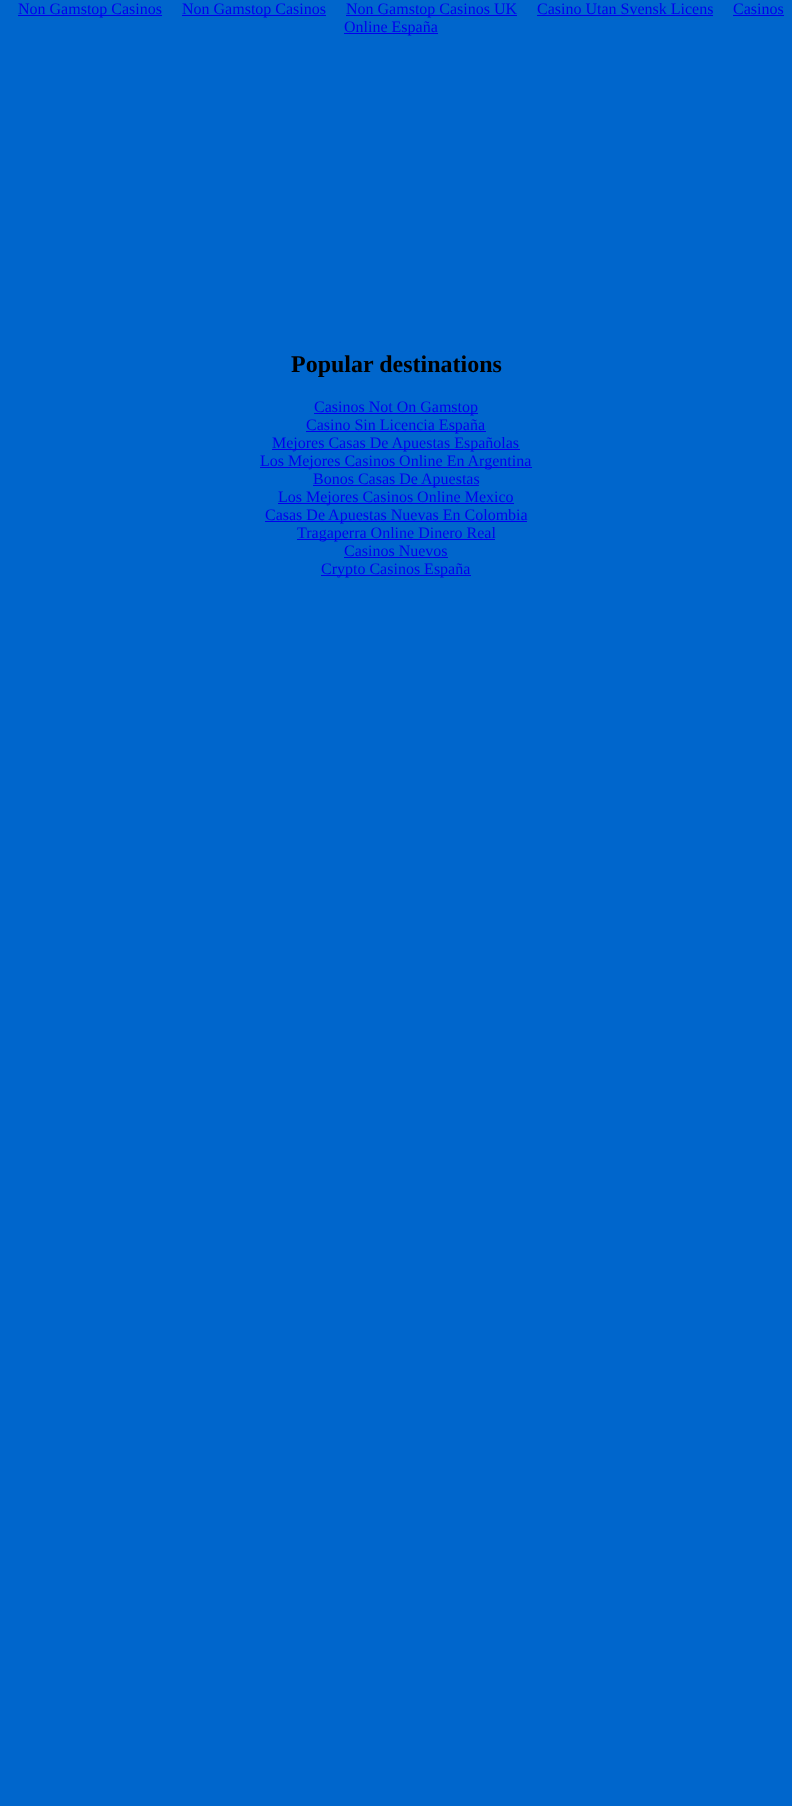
async function draw(canvas) {
  canvas.width = 792
  canvas.height = 1806
  const ctx = canvas.getContext('2d')
  ctx.miterLimit = 4
  ctx.fontKerning = 'normal'

  ctx.fillStyle = '#06c'
  ctx.fillRect(0, 0, 792, 1806)
  ctx.fillStyle = '#00e'
  ctx.fillRect(18, 15, 144, 1)
  ctx.font = '16px Liberation Serif'
  ctx.fillText('Non Gamstop Casinos', 18, 14)
  ctx.fillRect(182, 15, 144, 1)
  ctx.fillText('Non Gamstop Casinos', 182, 14)
  ctx.fillRect(346, 15, 171, 1)
  ctx.fillText('Non Gamstop Casinos UK', 346, 14)
  ctx.fillText('Casino Utan Svensk Licens', 537, 14)
  ctx.fillRect(537, 15, 176, 1)
  ctx.fillText('Casinos', 733, 14)
  ctx.fillRect(733, 15, 51, 1)
  ctx.fillRect(344, 33, 94, 1)
  ctx.fillText('Online España', 344, 32)
  ctx.font = 'bold 24px Liberation Serif'
  ctx.fillStyle = '#000'
  ctx.fillText('Popular destinations', 291, 372)
  ctx.fillStyle = '#00e'
  ctx.fillRect(314, 413, 164, 1)
  ctx.font = '16px Liberation Serif'
  ctx.fillText('Casinos Not On Gamstop', 314, 412)
  ctx.fillRect(306, 431, 180, 1)
  ctx.fillText('Casino Sin Licencia España', 306, 430)
  ctx.fillRect(272, 449, 248, 1)
  ctx.fillText('Mejores Casas De Apuestas Españolas', 272, 448)
  ctx.fillRect(260, 467, 272, 1)
  ctx.fillText('Los Mejores Casinos Online En Argentina', 260, 466)
  ctx.fillRect(313, 485, 166, 1)
  ctx.fillText('Bonos Casas De Apuestas', 313, 484)
  ctx.fillRect(278, 503, 236, 1)
  ctx.fillText('Los Mejores Casinos Online Mexico', 278, 502)
  ctx.fillRect(265, 521, 262, 1)
  ctx.fillText('Casas De Apuestas Nuevas En Colombia', 265, 520)
  ctx.fillRect(297, 539, 198, 1)
  ctx.fillText('Tragaperra Online Dinero Real', 297, 538)
  ctx.fillText('Casinos Nuevos', 344, 556)
  ctx.fillRect(344, 557, 104, 1)
  ctx.fillRect(321, 575, 150, 1)
  ctx.fillText('Crypto Casinos España', 321, 574)
}

draw(document.querySelector('canvas'))
